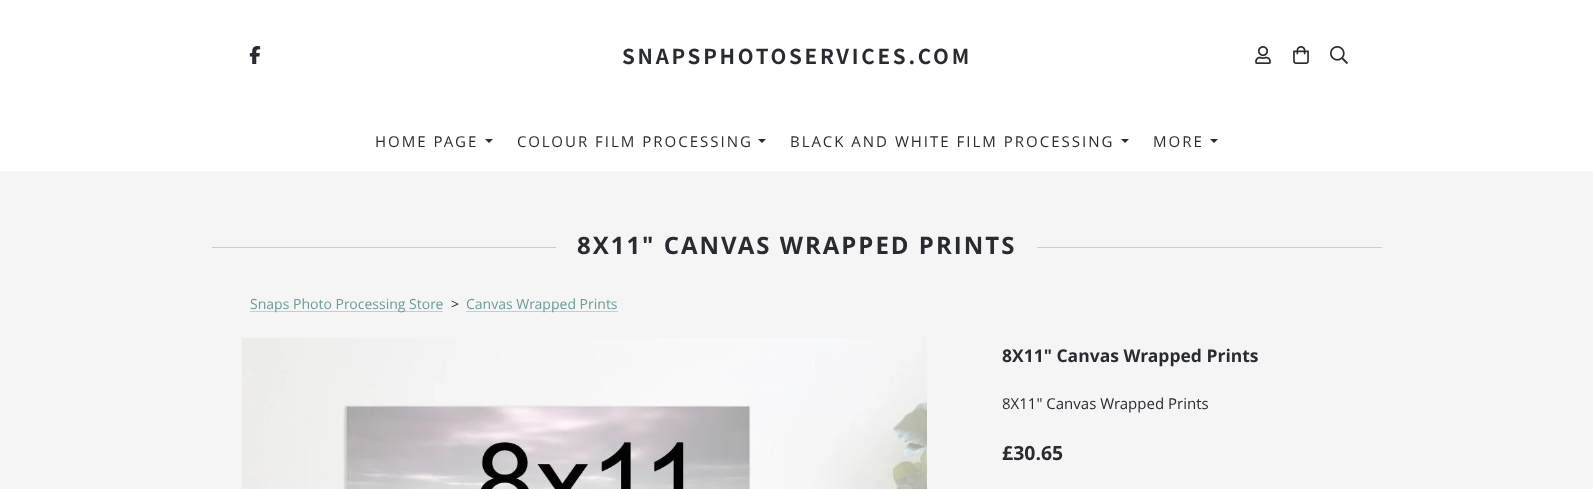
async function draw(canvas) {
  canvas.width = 1593
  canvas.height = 489
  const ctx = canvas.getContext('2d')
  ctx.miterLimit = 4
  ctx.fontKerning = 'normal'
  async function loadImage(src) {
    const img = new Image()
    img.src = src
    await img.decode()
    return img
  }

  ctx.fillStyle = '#f5f5f5'
  ctx.fillRect(0, 0, 1593, 489)
  ctx.fillStyle = '#fff'
  ctx.fillRect(0, 0, 1593, 171)
  ctx.drawImage(await loadImage('image0.png'), 249, 46, 12, 18)
  ctx.letterSpacing = '2.75px'
  ctx.font = 'bold 20.5px Noto Sans JP'
  ctx.fillStyle = '#282b30'
  ctx.fillText('SNAPSPHOTOSERVICES.COM', 622, 64)
  ctx.drawImage(await loadImage('image1.png'), 1255, 46, 16, 18)
  ctx.drawImage(await loadImage('image2.png'), 1293, 46, 16, 18)
  ctx.drawImage(await loadImage('image3.png'), 1330, 46, 18, 18)
  ctx.letterSpacing = '2px'
  ctx.font = '15px Open Sans'
  ctx.fillText('HOME PAGE', 375, 147)
  ctx.beginPath()
  ctx.moveTo(485, 139)
  ctx.lineTo(493, 139)
  ctx.lineTo(489, 143)
  ctx.closePath()
  ctx.fill()
  ctx.fillText('COLOUR FILM PROCESSING', 517, 147)
  ctx.beginPath()
  ctx.moveTo(758, 139)
  ctx.lineTo(766, 139)
  ctx.lineTo(762, 143)
  ctx.closePath()
  ctx.fill()
  ctx.fillText('BLACK AND WHITE FILM PROCESSING', 790, 147)
  ctx.beginPath()
  ctx.moveTo(1121, 139)
  ctx.lineTo(1129, 139)
  ctx.lineTo(1125, 143)
  ctx.closePath()
  ctx.fill()
  ctx.fillText('MORE', 1153, 147)
  ctx.beginPath()
  ctx.moveTo(1210, 139)
  ctx.lineTo(1218, 139)
  ctx.lineTo(1214, 143)
  ctx.closePath()
  ctx.fill()
  ctx.fillStyle = '#cccdce'
  ctx.fillRect(212, 247, 344, 1)
  ctx.font = 'bold 24px Open Sans'
  ctx.fillStyle = '#282b30'
  ctx.fillText('8X11" CANVAS WRAPPED PRINTS', 577, 254)
  ctx.fillStyle = '#cccdce'
  ctx.fillRect(1037, 247, 345, 1)
  ctx.fillStyle = '#bdd1d0'
  ctx.fillRect(250, 311, 193, 1)
  ctx.letterSpacing = '0px'
  ctx.font = '14px Open Sans'
  ctx.fillStyle = '#699b99'
  ctx.fillText('Snaps Photo Processing Store', 250, 309)
  ctx.fillStyle = '#282b30'
  ctx.fillText('>', 451, 309)
  ctx.fillStyle = '#bdd1d0'
  ctx.fillRect(466, 311, 152, 1)
  ctx.fillStyle = '#699b99'
  ctx.fillText('Canvas Wrapped Prints', 466, 309)
  ctx.drawImage(await loadImage('image4.png'), 242, 338, 685, 151)
  ctx.font = 'bold 17.5px Open Sans'
  ctx.fillStyle = '#282b30'
  ctx.fillText('8X11" Canvas Wrapped Prints', 1002, 362)
  ctx.font = '15px Open Sans'
  ctx.fillText('8X11" Canvas Wrapped Prints', 1002, 409)
  ctx.font = 'bold 19.5px Open Sans'
  ctx.fillText('£30.65', 1002, 460)
}

draw(document.querySelector('canvas'))
